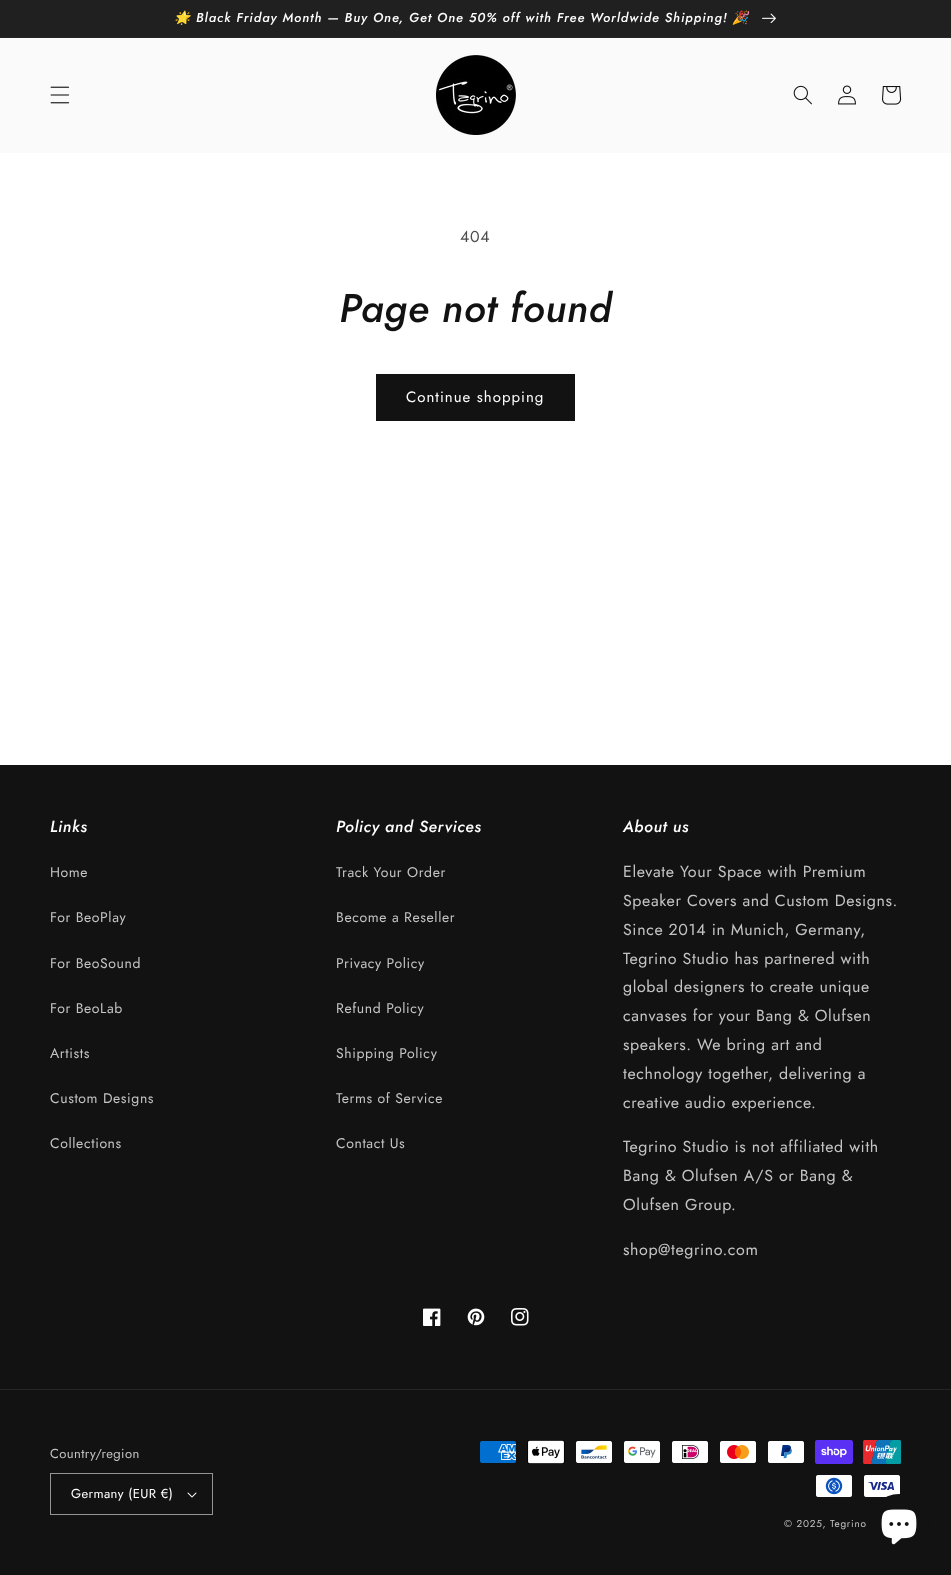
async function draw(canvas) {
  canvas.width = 951
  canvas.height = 1575
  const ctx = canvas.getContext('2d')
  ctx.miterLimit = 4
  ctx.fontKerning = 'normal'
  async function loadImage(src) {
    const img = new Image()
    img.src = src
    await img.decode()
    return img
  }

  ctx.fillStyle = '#fff'
  ctx.fillRect(0, 0, 951, 1575)
  ctx.fillStyle = '#252525'
  ctx.fillRect(0, 37, 951, 1)
  ctx.fillStyle = '#202020'
  ctx.fillRect(0, 0, 951, 37)
  ctx.letterSpacing = '1px'
  ctx.font = 'italic 13px Noto Color Emoji'
  ctx.fillStyle = '#fff'
  ctx.fillText('🌟', 174, 22)
  ctx.font = 'italic 500 13px Jost'
  ctx.fillText('Black Friday Month — Buy One, Get One 50% off with Free Worldwide Shipping!', 196, 22)
  ctx.font = 'italic 13px Noto Color Emoji'
  ctx.fillText('🎉', 732, 22)
  ctx.drawImage(await loadImage('image0.png'), 762, 13, 14, 10)
  ctx.fillStyle = '#fafafa'
  ctx.fillRect(0, 38, 951, 115)
  ctx.drawImage(await loadImage('image1.png'), 50, 86, 20, 18)
  ctx.drawImage(await loadImage('image2.png'), 436, 55, 80, 80)
  ctx.drawImage(await loadImage('image3.png'), 793, 85, 19, 20)
  ctx.drawImage(await loadImage('image4.png'), 838, 85, 18, 20)
  ctx.drawImage(await loadImage('image5.png'), 882, 86, 20, 19)
  ctx.letterSpacing = '0.6px'
  ctx.font = '16px Jost'
  ctx.fillStyle = '#4d4d4d'
  ctx.fillText('404', 460, 242)
  ctx.font = 'italic 500 40px Jost'
  ctx.fillStyle = '#121212'
  ctx.fillText('Page not found', 339, 322)
  ctx.fillRect(376, 374, 199, 47)
  ctx.letterSpacing = '1px'
  ctx.font = '15px Jost'
  ctx.fillStyle = '#fff'
  ctx.fillText('Continue shopping', 406, 402)
  ctx.fillStyle = '#121212'
  ctx.fillRect(0, 765, 951, 810)
  ctx.letterSpacing = '0.6px'
  ctx.font = 'italic 500 16px Jost'
  ctx.fillStyle = '#fff'
  ctx.fillText('Links', 50, 832)
  ctx.font = '14px Jost'
  ctx.fillStyle = '#c4c4c4'
  ctx.fillText('Home', 50, 877)
  ctx.fillText('For BeoPlay', 50, 922)
  ctx.fillText('For BeoSound', 50, 968)
  ctx.fillText('For BeoLab', 50, 1013)
  ctx.fillText('Artists', 50, 1058)
  ctx.fillText('Custom Designs', 50, 1103)
  ctx.fillText('Collections', 50, 1148)
  ctx.font = 'italic 500 16px Jost'
  ctx.fillStyle = '#fff'
  ctx.fillText('Policy and Services', 336, 832)
  ctx.font = '14px Jost'
  ctx.fillStyle = '#c4c4c4'
  ctx.fillText('Track Your Order', 336, 877)
  ctx.fillText('Become a Reseller', 336, 922)
  ctx.fillText('Privacy Policy', 336, 968)
  ctx.fillText('Refund Policy', 336, 1013)
  ctx.fillText('Shipping Policy', 336, 1058)
  ctx.fillText('Terms of Service', 336, 1103)
  ctx.fillText('Contact Us', 336, 1148)
  ctx.font = 'italic 500 16px Jost'
  ctx.fillStyle = '#fff'
  ctx.fillText('About us', 623, 832)
  ctx.font = '16px Jost'
  ctx.fillStyle = '#c4c4c4'
  ctx.fillText('Elevate Your Space with Premium', 623, 877)
  ctx.fillText('Speaker Covers and Custom Designs.', 623, 906)
  ctx.fillText('Since 2014 in Munich, Germany,', 623, 935)
  ctx.fillText('Tegrino Studio has partnered with', 623, 964)
  ctx.fillText('global designers to create unique', 623, 992)
  ctx.fillText('canvases for your Bang & Olufsen', 623, 1021)
  ctx.fillText('speakers. We bring art and', 623, 1050)
  ctx.fillText('technology together, delivering a', 623, 1079)
  ctx.fillText('creative audio experience.', 623, 1108)
  ctx.fillText('Tegrino Studio is not affiliated with', 623, 1152)
  ctx.fillText('Bang & Olufsen A/S or Bang &', 623, 1181)
  ctx.fillText('Olufsen Group.', 623, 1210)
  ctx.fillText('shop@tegrino.com', 623, 1255)
  ctx.drawImage(await loadImage('image6.png'), 423, 1308, 18, 18)
  ctx.drawImage(await loadImage('image7.png'), 467, 1308, 18, 18)
  ctx.drawImage(await loadImage('image8.png'), 511, 1308, 18, 18)
  ctx.fillStyle = '#252525'
  ctx.fillRect(0, 1389, 951, 1)
  ctx.letterSpacing = '0.4px'
  ctx.font = '13px Jost'
  ctx.fillStyle = '#c4c4c4'
  ctx.fillText('Country/region', 50, 1458)
  ctx.drawImage(await loadImage('image9.png'), 187, 1492, 10, 6)
  ctx.strokeStyle = '#949494'
  ctx.strokeRect(50.5, 1473.5, 162, 41)
  ctx.fillStyle = '#fff'
  ctx.fillText('Germany (EUR €)', 71, 1498)
  ctx.drawImage(await loadImage('image10.png'), 480, 1441, 36, 22)
  ctx.drawImage(await loadImage('image11.png'), 527, 1440, 38, 24)
  ctx.drawImage(await loadImage('image12.png'), 576, 1441, 36, 22)
  ctx.drawImage(await loadImage('image13.png'), 624, 1441, 36, 22)
  ctx.drawImage(await loadImage('image14.png'), 672, 1441, 36, 22)
  ctx.drawImage(await loadImage('image15.png'), 720, 1441, 36, 22)
  ctx.drawImage(await loadImage('image16.png'), 768, 1441, 36, 22)
  ctx.drawImage(await loadImage('image17.png'), 815, 1440, 38, 24)
  ctx.drawImage(await loadImage('image18.png'), 863, 1440, 38, 24)
  ctx.drawImage(await loadImage('image19.png'), 816, 1475, 36, 22)
  ctx.drawImage(await loadImage('image20.png'), 864, 1475, 36, 22)
  ctx.letterSpacing = '0.75px'
  ctx.font = '10px Jost'
  ctx.fillStyle = '#c4c4c4'
  ctx.fillText('© 2025, Tegrino', 784, 1527)
  ctx.fillStyle = '#121212'
  ctx.beginPath()
  ctx.arc(899, 1524, 30, 0, 2 * Math.PI)
  ctx.fill()
  ctx.drawImage(await loadImage('image21.png'), 881, 1509, 36, 36)
}

draw(document.querySelector('canvas'))
